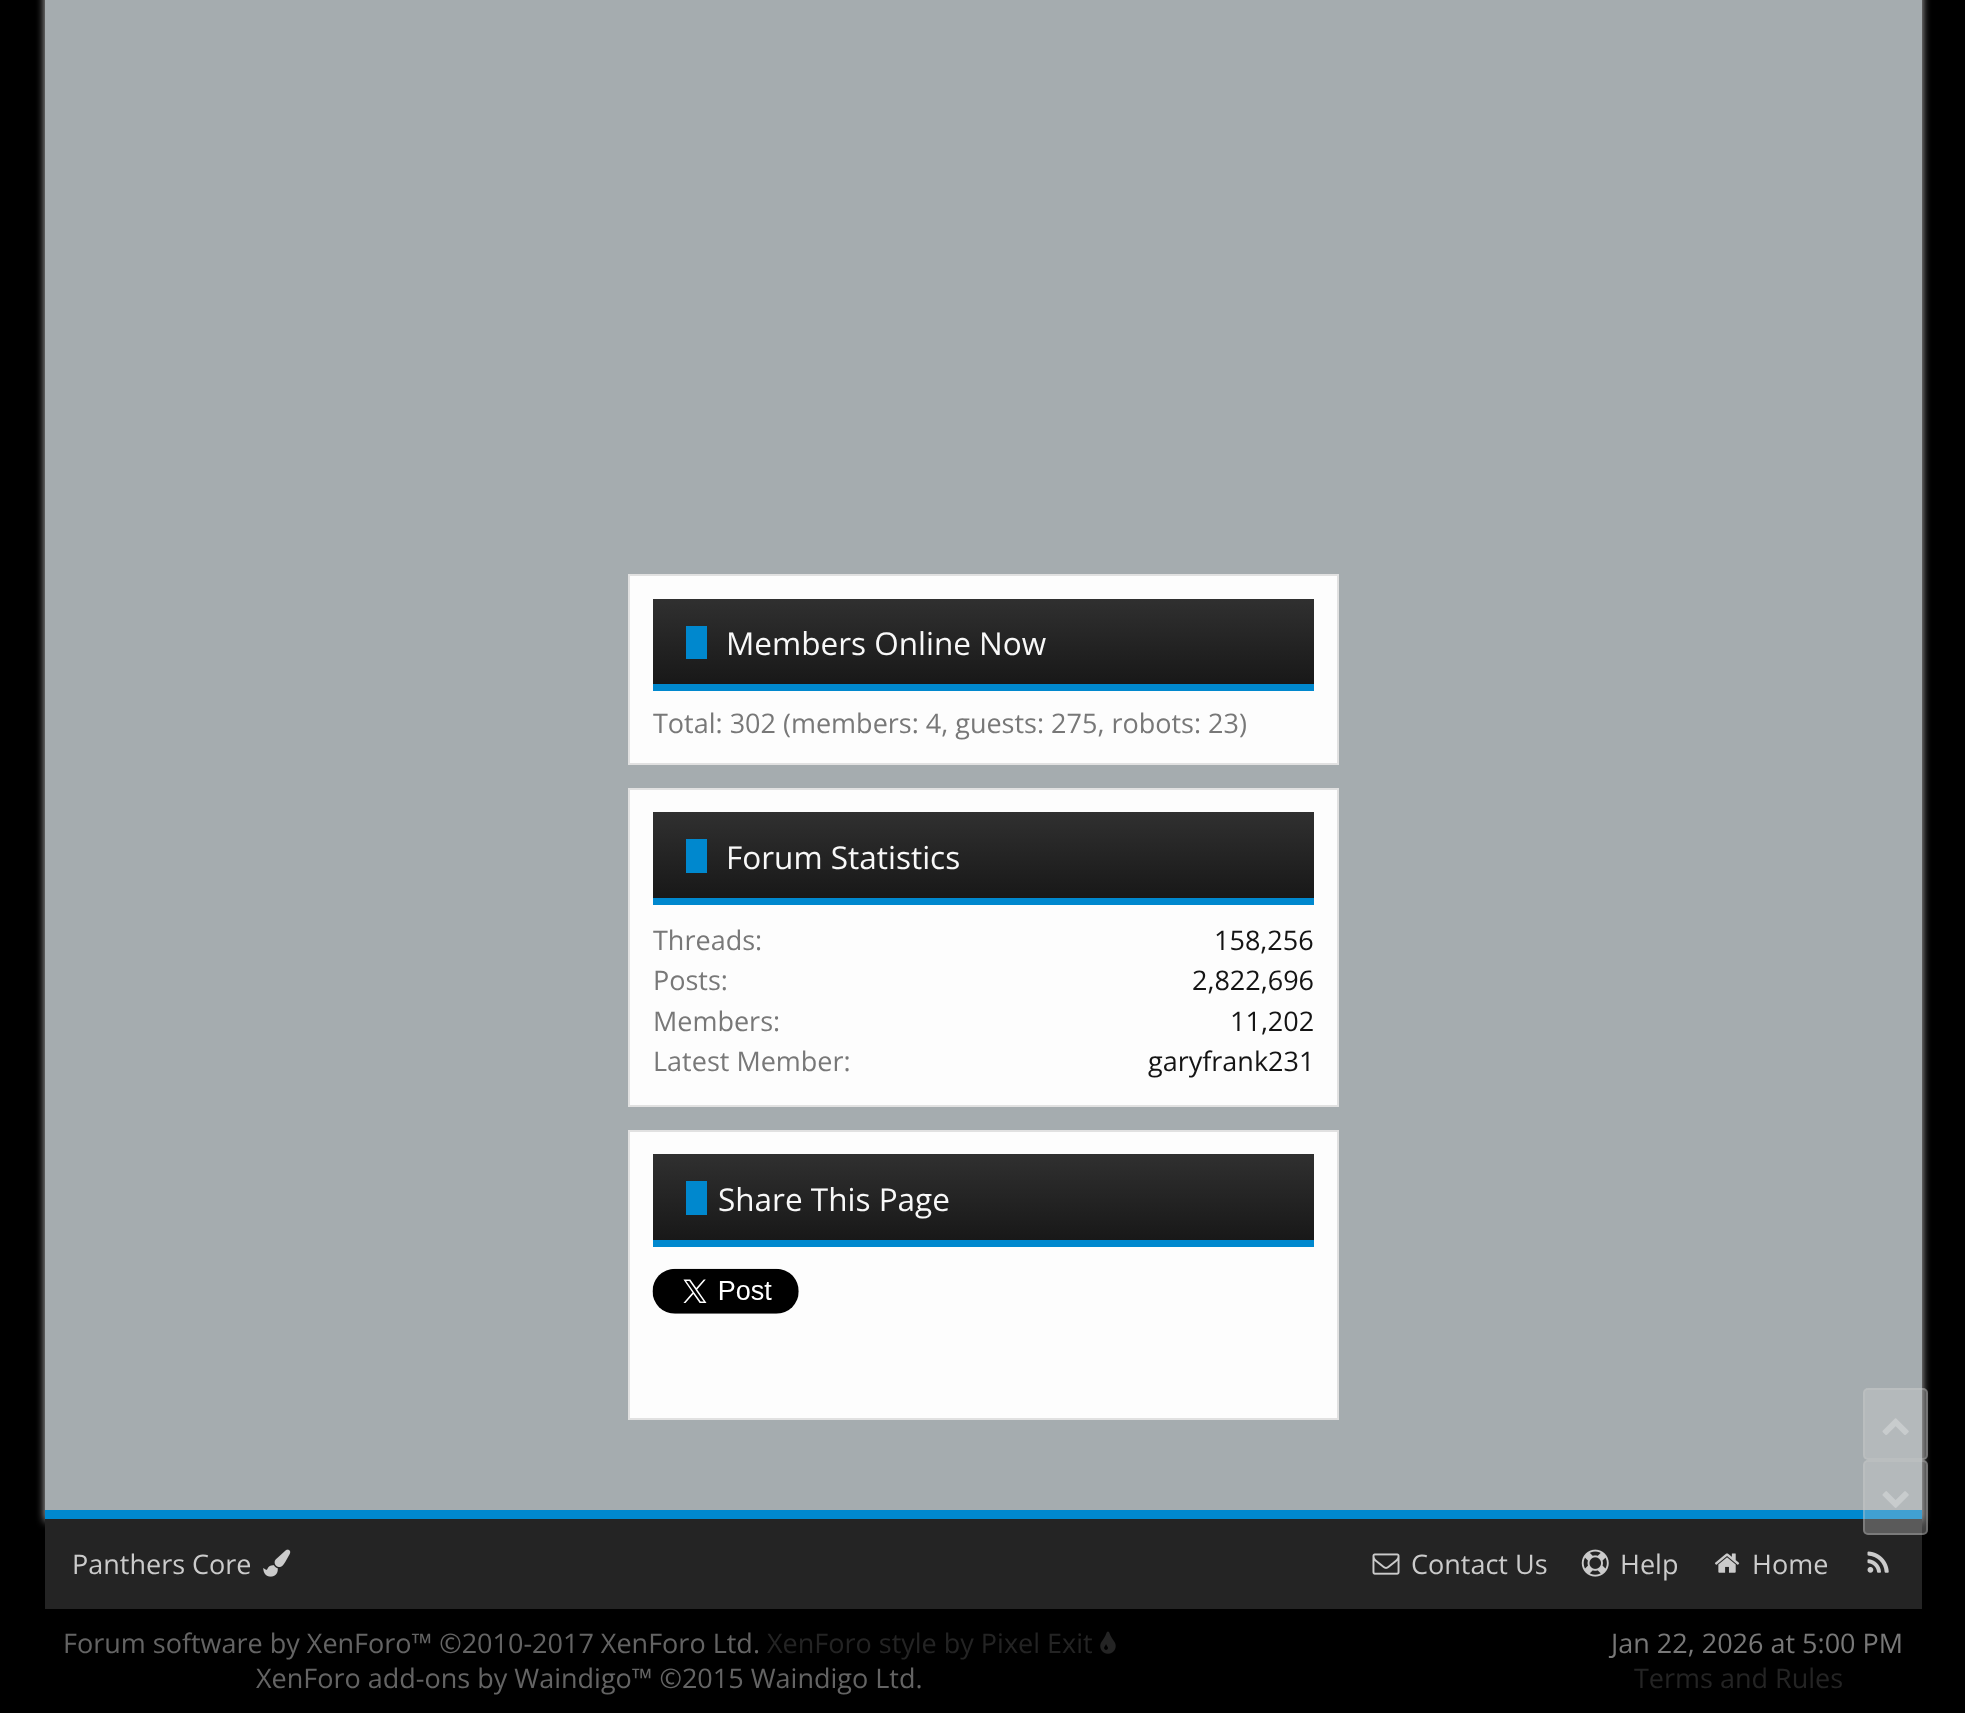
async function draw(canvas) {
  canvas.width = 1965
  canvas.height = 1713
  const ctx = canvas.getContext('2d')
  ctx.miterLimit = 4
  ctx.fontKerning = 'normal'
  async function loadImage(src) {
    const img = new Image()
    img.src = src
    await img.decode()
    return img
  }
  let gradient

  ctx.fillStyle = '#000'
  ctx.fillRect(0, 0, 1965, 1713)
  ctx.fillStyle = '#c2c2c2'
  ctx.filter = 'blur(4.5px)'
  ctx.beginPath()
  ctx.rect(45, -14, 1877, 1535)
  ctx.fill()
  ctx.filter = 'none'
  ctx.fillStyle = '#a5acaf'
  ctx.fillRect(45, 0, 1877, 1510)
  ctx.fillStyle = '#0088ce'
  ctx.fillRect(45, 1510, 1877, 9)
  ctx.fillStyle = '#fdfdfd'
  ctx.beginPath()
  ctx.rect(629, 575, 709, 189)
  ctx.fill()
  ctx.strokeStyle = '#e1e1e1'
  ctx.lineWidth = 2
  ctx.stroke()
  gradient = ctx.createLinearGradient(983, 599, 983, 684)
  gradient.addColorStop(0, '#303030')
  gradient.addColorStop(1, '#181818')
  ctx.fillStyle = gradient
  ctx.fillRect(653, 599, 661, 85)
  ctx.fillStyle = '#0088ce'
  ctx.fillRect(653, 684, 661, 7)
  ctx.fillRect(686, 626, 21, 33)
  ctx.font = '31.5px Open Sans'
  ctx.fillStyle = '#f8f8f8'
  ctx.fillText('Members Online Now', 726, 655)
  ctx.font = '27px Open Sans'
  ctx.fillStyle = '#787878'
  ctx.fillText('Total: 302 (members: 4, guests: 275, robots: 23)', 653, 733)
  ctx.fillStyle = '#fdfdfd'
  ctx.beginPath()
  ctx.rect(629, 789, 709, 317)
  ctx.fill()
  ctx.stroke()
  gradient = ctx.createLinearGradient(983, 812, 983, 898)
  gradient.addColorStop(0, '#303030')
  gradient.addColorStop(1, '#181818')
  ctx.fillStyle = gradient
  ctx.fillRect(653, 812, 661, 86)
  ctx.fillStyle = '#0088ce'
  ctx.fillRect(653, 898, 661, 7)
  ctx.fillRect(686, 839, 21, 34)
  ctx.font = '31.5px Open Sans'
  ctx.fillStyle = '#f8f8f8'
  ctx.fillText('Forum Statistics', 726, 869)
  ctx.save()
  ctx.beginPath()
  ctx.rect(653, 920, 661, 41)
  ctx.clip()
  ctx.font = '27px Open Sans'
  ctx.fillStyle = '#787878'
  ctx.fillText('Threads:', 653, 950)
  ctx.restore()
  ctx.font = '27px Open Sans'
  ctx.fillStyle = '#141414'
  ctx.fillText('158,256', 1214, 950)
  ctx.fillStyle = '#787878'
  ctx.fillText('Posts:', 653, 990)
  ctx.fillStyle = '#141414'
  ctx.fillText('2,822,696', 1192, 990)
  ctx.fillStyle = '#787878'
  ctx.fillText('Members:', 653, 1031)
  ctx.fillStyle = '#141414'
  ctx.fillText('11,202', 1230, 1031)
  ctx.fillStyle = '#787878'
  ctx.fillText('Latest Member:', 653, 1071)
  ctx.fillStyle = '#141414'
  ctx.fillText('garyfrank231', 1148, 1071)
  ctx.fillStyle = '#fdfdfd'
  ctx.beginPath()
  ctx.rect(629, 1131, 709, 288)
  ctx.fill()
  ctx.stroke()
  gradient = ctx.createLinearGradient(983, 1154, 983, 1240)
  gradient.addColorStop(0, '#303030')
  gradient.addColorStop(1, '#181818')
  ctx.fillStyle = gradient
  ctx.fillRect(653, 1154, 661, 86)
  ctx.fillStyle = '#0088ce'
  ctx.fillRect(653, 1240, 661, 7)
  ctx.fillRect(686, 1181, 21, 34)
  ctx.font = '31.5px Open Sans'
  ctx.fillStyle = '#f8f8f8'
  ctx.fillText('Share This Page', 718, 1211)
  ctx.drawImage(await loadImage('image0.png'), 652, 1268, 147, 46)
  ctx.fillStyle = '#d7d7d74d'
  ctx.beginPath()
  ctx.roundRect(1863, 1388, 65, 72, 5)
  ctx.fill()
  ctx.beginPath()
  ctx.roundRect(1864, 1389, 63, 70, 4)
  ctx.strokeStyle = '#cbcbcb4d'
  ctx.stroke()
  ctx.drawImage(await loadImage('image1.png'), 1882, 1418, 27, 17)
  ctx.fillStyle = '#242424'
  ctx.fillRect(45, 1519, 1877, 90)
  ctx.fillStyle = '#d7d7d74d'
  ctx.beginPath()
  ctx.roundRect(1863, 1460, 65, 75, 5)
  ctx.fill()
  ctx.beginPath()
  ctx.roundRect(1864, 1461, 63, 73, 4)
  ctx.stroke()
  ctx.drawImage(await loadImage('image2.png'), 1882, 1491, 27, 17)
  ctx.font = '27px Open Sans'
  ctx.fillStyle = '#cbcbcb'
  ctx.fillText('Panthers Core', 72, 1574)
  ctx.drawImage(await loadImage('image3.png'), 263, 1549, 28, 28)
  ctx.drawImage(await loadImage('image4.png'), 1372, 1553, 28, 22)
  ctx.fillText('Contact Us', 1411, 1574)
  ctx.drawImage(await loadImage('image5.png'), 1581, 1549, 28, 28)
  ctx.fillText('Help', 1620, 1574)
  ctx.drawImage(await loadImage('image6.png'), 1714, 1553, 26, 20)
  ctx.fillText('Home', 1752, 1574)
  ctx.drawImage(await loadImage('image7.png'), 1867, 1551, 22, 22)
  ctx.fillStyle = '#646464'
  ctx.fillText('Forum software by XenForo™ ©2010-2017 XenForo Ltd.', 63, 1653)
  ctx.fillStyle = '#242424'
  ctx.fillText('XenForo style by Pixel Exit', 767, 1653)
  ctx.drawImage(await loadImage('image8.png'), 1100, 1631, 16, 23)
  ctx.fillStyle = '#646464'
  ctx.fillText('XenForo add-ons by Waindigo™ ©2015 Waindigo Ltd.', 256, 1688)
  ctx.fillStyle = '#787878'
  ctx.fillText('Jan 22, 2026 at 5:00 PM', 1611, 1653)
  ctx.fillStyle = '#242424'
  ctx.fillText('Terms and Rules', 1634, 1688)
}

draw(document.querySelector('canvas'))
